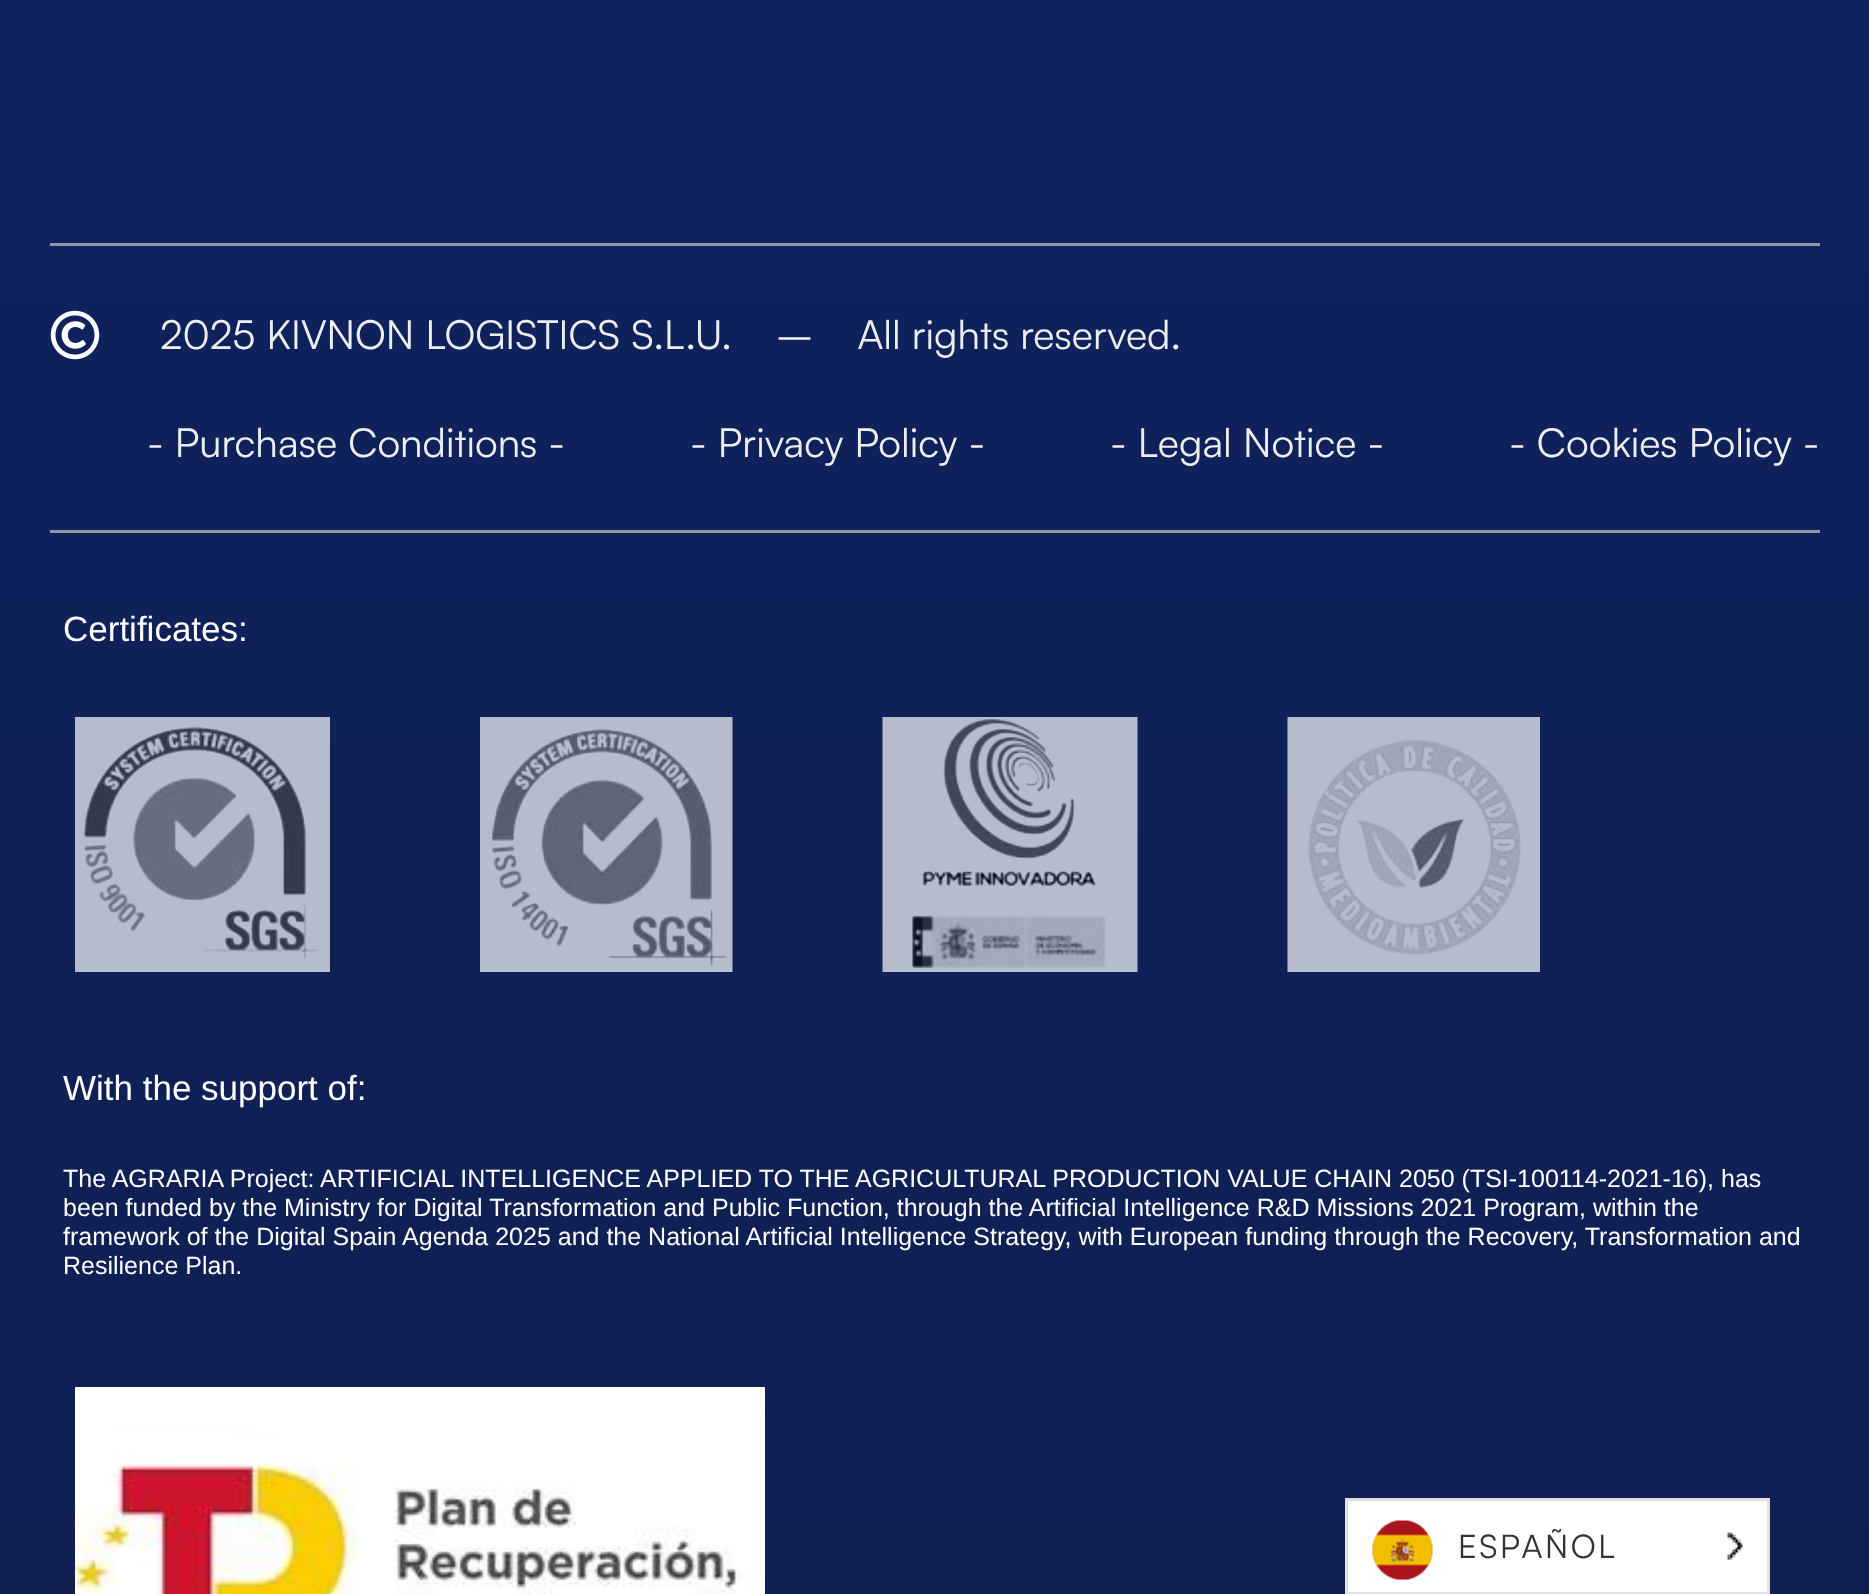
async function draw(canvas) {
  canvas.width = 1869
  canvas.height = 1594
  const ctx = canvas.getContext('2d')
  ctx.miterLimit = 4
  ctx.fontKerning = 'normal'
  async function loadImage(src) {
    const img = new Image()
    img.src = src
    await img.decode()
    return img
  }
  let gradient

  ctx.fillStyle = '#fff'
  ctx.fillRect(0, 0, 1869, 1594)
  gradient = ctx.createLinearGradient(935, -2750, 935, 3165)
  gradient.addColorStop(0, '#102874')
  gradient.addColorStop(1, '#0f1c46')
  ctx.fillStyle = gradient
  ctx.fillRect(0, 0, 1869, 1594)
  ctx.fillStyle = '#9297a8'
  ctx.fillRect(50, 243, 1770, 3)
  ctx.drawImage(await loadImage('image0.png'), 50, 310, 50, 50)
  ctx.font = '40px Satoshi'
  ctx.fillStyle = '#eee'
  ctx.fillText('2025 KIVNON LOGISTICS S.L.U.    –    All rights reserved.', 160, 349)
  ctx.fillText('- Purchase Conditions -', 147, 457)
  ctx.fillText('- Privacy Policy -', 690, 457)
  ctx.fillText('- Legal Notice -', 1110, 457)
  ctx.fillText('- Cookies Policy -', 1509, 457)
  ctx.fillStyle = '#9297a7'
  ctx.fillRect(50, 530, 1770, 3)
  ctx.font = '35px Liberation Sans'
  ctx.fillStyle = '#fff'
  ctx.fillText('Certificates:', 63, 641)
  ctx.drawImage(await loadImage('image1.png'), 75, 717, 255, 255)
  ctx.drawImage(await loadImage('image2.png'), 480, 717, 253, 255)
  ctx.drawImage(await loadImage('image3.png'), 882, 717, 256, 255)
  ctx.drawImage(await loadImage('image4.png'), 1287, 717, 253, 255)
  ctx.fillText('With the support of:', 63, 1100)
  ctx.font = '25px Liberation Sans'
  ctx.fillText('The AGRARIA Project: ARTIFICIAL INTELLIGENCE APPLIED TO THE AGRICULTURAL PRODUCTION VALUE CHAIN 2050 (TSI-100114-2021-16), has', 63, 1187)
  ctx.fillText('been funded by the Ministry for Digital Transformation and Public Function, through the Artificial Intelligence R&D Missions 2021 Program, within the', 63, 1216)
  ctx.fillText('framework of the Digital Spain Agenda 2025 and the National Artificial Intelligence Strategy, with European funding through the Recovery, Transformation and', 63, 1245)
  ctx.fillText('Resilience Plan.', 63, 1274)
  ctx.drawImage(await loadImage('image5.png'), 75, 1387, 690, 207)
  ctx.beginPath()
  ctx.rect(1346.5, 1499.5, 422, 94)
  ctx.fill()
  ctx.strokeStyle = '#e0e0e0'
  ctx.lineWidth = 3
  ctx.stroke()
  ctx.drawImage(await loadImage('image6.png'), 1372, 1520, 61, 61)
  ctx.letterSpacing = '2.5px'
  ctx.font = '32.5px Satoshi'
  ctx.fillStyle = '#333'
  ctx.fillText('ESPAÑOL', 1458, 1558)
  ctx.drawImage(await loadImage('image7.png'), 1727, 1532, 16, 28)
}

draw(document.querySelector('canvas'))
